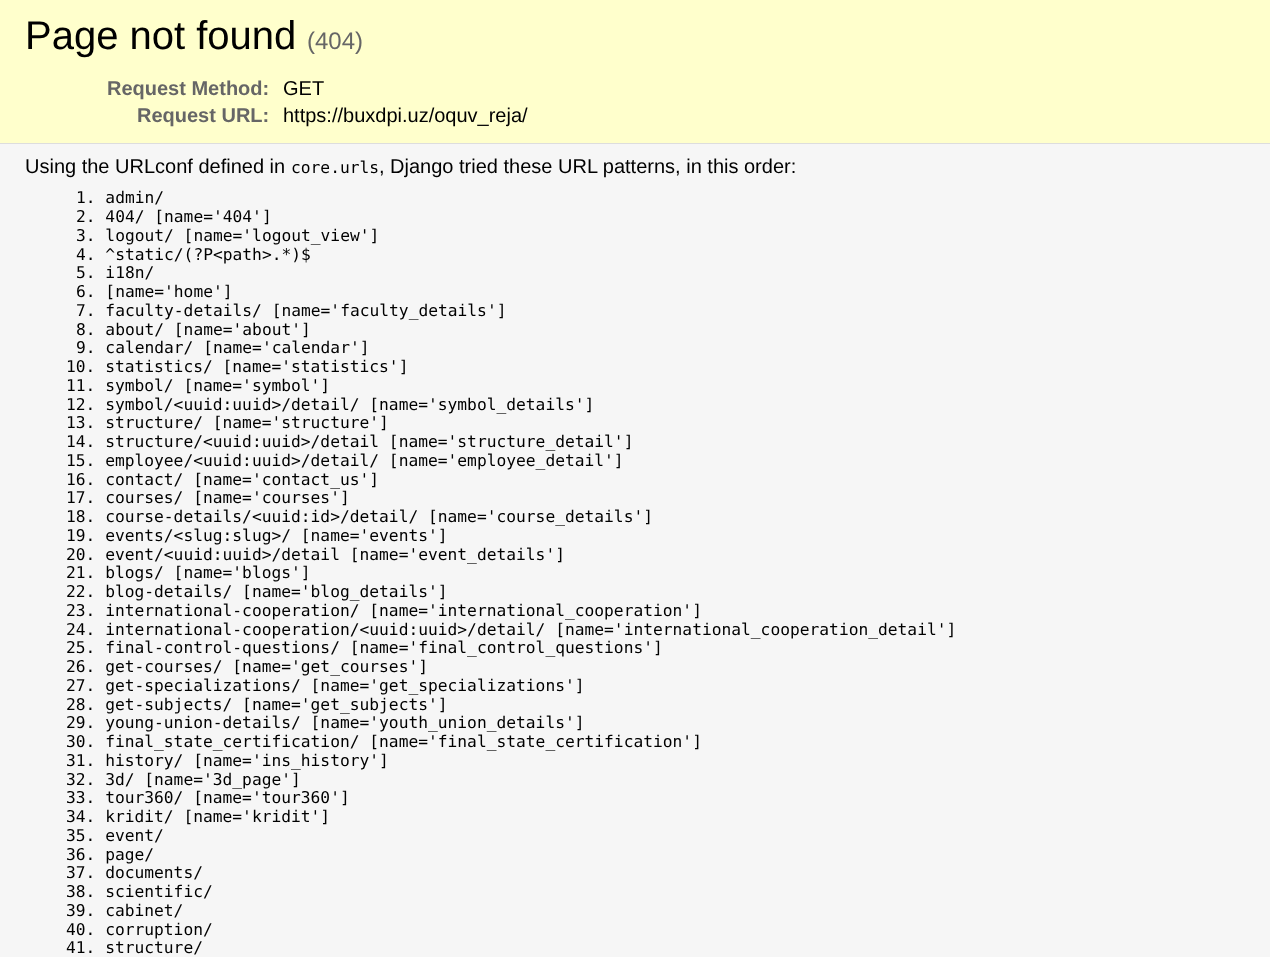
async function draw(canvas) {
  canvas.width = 1270
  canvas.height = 957
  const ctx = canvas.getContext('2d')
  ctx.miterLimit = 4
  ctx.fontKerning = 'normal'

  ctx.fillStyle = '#ffc'
  ctx.fillRect(0, 0, 1270, 957)
  ctx.fillStyle = '#ddd'
  ctx.fillRect(0, 143, 1270, 1)
  ctx.font = '40px Liberation Sans'
  ctx.fillStyle = '#000'
  ctx.fillText('Page not found', 25, 49)
  ctx.font = '24px Liberation Sans'
  ctx.fillStyle = '#666'
  ctx.fillText('(404)', 307, 49)
  ctx.font = 'bold 20px Liberation Sans'
  ctx.fillText('Request Method:', 107, 95)
  ctx.font = '20px Liberation Sans'
  ctx.fillStyle = '#000'
  ctx.fillText('GET', 283, 95)
  ctx.font = 'bold 20px Liberation Sans'
  ctx.fillStyle = '#666'
  ctx.fillText('Request URL:', 137, 122)
  ctx.font = '20px Liberation Sans'
  ctx.fillStyle = '#000'
  ctx.fillText('https://buxdpi.uz/oquv_reja/', 283, 122)
  ctx.fillStyle = '#f6f6f6'
  ctx.fillRect(0, 144, 1270, 813)
  ctx.fillStyle = '#000'
  ctx.fillText('Using the URLconf defined in', 25, 173)
  ctx.font = '16.25px DejaVu Sans Mono'
  ctx.fillText('core.urls', 291, 173)
  ctx.font = '20px Liberation Sans'
  ctx.fillText(', Django tried these URL patterns, in this order:', 379, 173)
  ctx.font = '16.25px DejaVu Sans Mono'
  ctx.fillText('1. admin/', 76, 203)
  ctx.fillText('2. 404/ [name=\'404\']', 76, 222)
  ctx.fillText('3. logout/ [name=\'logout_view\']', 76, 241)
  ctx.fillText('4. ^static/(?P<path>.*)$', 76, 260)
  ctx.fillText('5. i18n/', 76, 278)
  ctx.fillText('6. [name=\'home\']', 76, 297)
  ctx.fillText('7. faculty-details/ [name=\'faculty_details\']', 76, 316)
  ctx.fillText('8. about/ [name=\'about\']', 76, 335)
  ctx.fillText('9. calendar/ [name=\'calendar\']', 76, 353)
  ctx.fillText('10. statistics/ [name=\'statistics\']', 66, 372)
  ctx.fillText('11. symbol/ [name=\'symbol\']', 66, 391)
  ctx.fillText('12. symbol/<uuid:uuid>/detail/ [name=\'symbol_details\']', 66, 410)
  ctx.fillText('13. structure/ [name=\'structure\']', 66, 428)
  ctx.fillText('14. structure/<uuid:uuid>/detail [name=\'structure_detail\']', 66, 447)
  ctx.fillText('15. employee/<uuid:uuid>/detail/ [name=\'employee_detail\']', 66, 466)
  ctx.fillText('16. contact/ [name=\'contact_us\']', 66, 485)
  ctx.fillText('17. courses/ [name=\'courses\']', 66, 503)
  ctx.fillText('18. course-details/<uuid:id>/detail/ [name=\'course_details\']', 66, 522)
  ctx.fillText('19. events/<slug:slug>/ [name=\'events\']', 66, 541)
  ctx.fillText('20. event/<uuid:uuid>/detail [name=\'event_details\']', 66, 560)
  ctx.fillText('21. blogs/ [name=\'blogs\']', 66, 578)
  ctx.fillText('22. blog-details/ [name=\'blog_details\']', 66, 597)
  ctx.fillText('23. international-cooperation/ [name=\'international_cooperation\']', 66, 616)
  ctx.fillText('24. international-cooperation/<uuid:uuid>/detail/ [name=\'international_cooperation_detail\']', 66, 635)
  ctx.fillText('25. final-control-questions/ [name=\'final_control_questions\']', 66, 653)
  ctx.fillText('26. get-courses/ [name=\'get_courses\']', 66, 672)
  ctx.fillText('27. get-specializations/ [name=\'get_specializations\']', 66, 691)
  ctx.fillText('28. get-subjects/ [name=\'get_subjects\']', 66, 710)
  ctx.fillText('29. young-union-details/ [name=\'youth_union_details\']', 66, 728)
  ctx.fillText('30. final_state_certification/ [name=\'final_state_certification\']', 66, 747)
  ctx.fillText('31. history/ [name=\'ins_history\']', 66, 766)
  ctx.fillText('32. 3d/ [name=\'3d_page\']', 66, 785)
  ctx.fillText('33. tour360/ [name=\'tour360\']', 66, 803)
  ctx.fillText('34. kridit/ [name=\'kridit\']', 66, 822)
  ctx.fillText('35. event/', 66, 841)
  ctx.fillText('36. page/', 66, 860)
  ctx.fillText('37. documents/', 66, 878)
  ctx.fillText('38. scientific/', 66, 897)
  ctx.fillText('39. cabinet/', 66, 916)
  ctx.fillText('40. corruption/', 66, 935)
  ctx.fillText('41. structure/', 66, 953)
}

draw(document.querySelector('canvas'))
